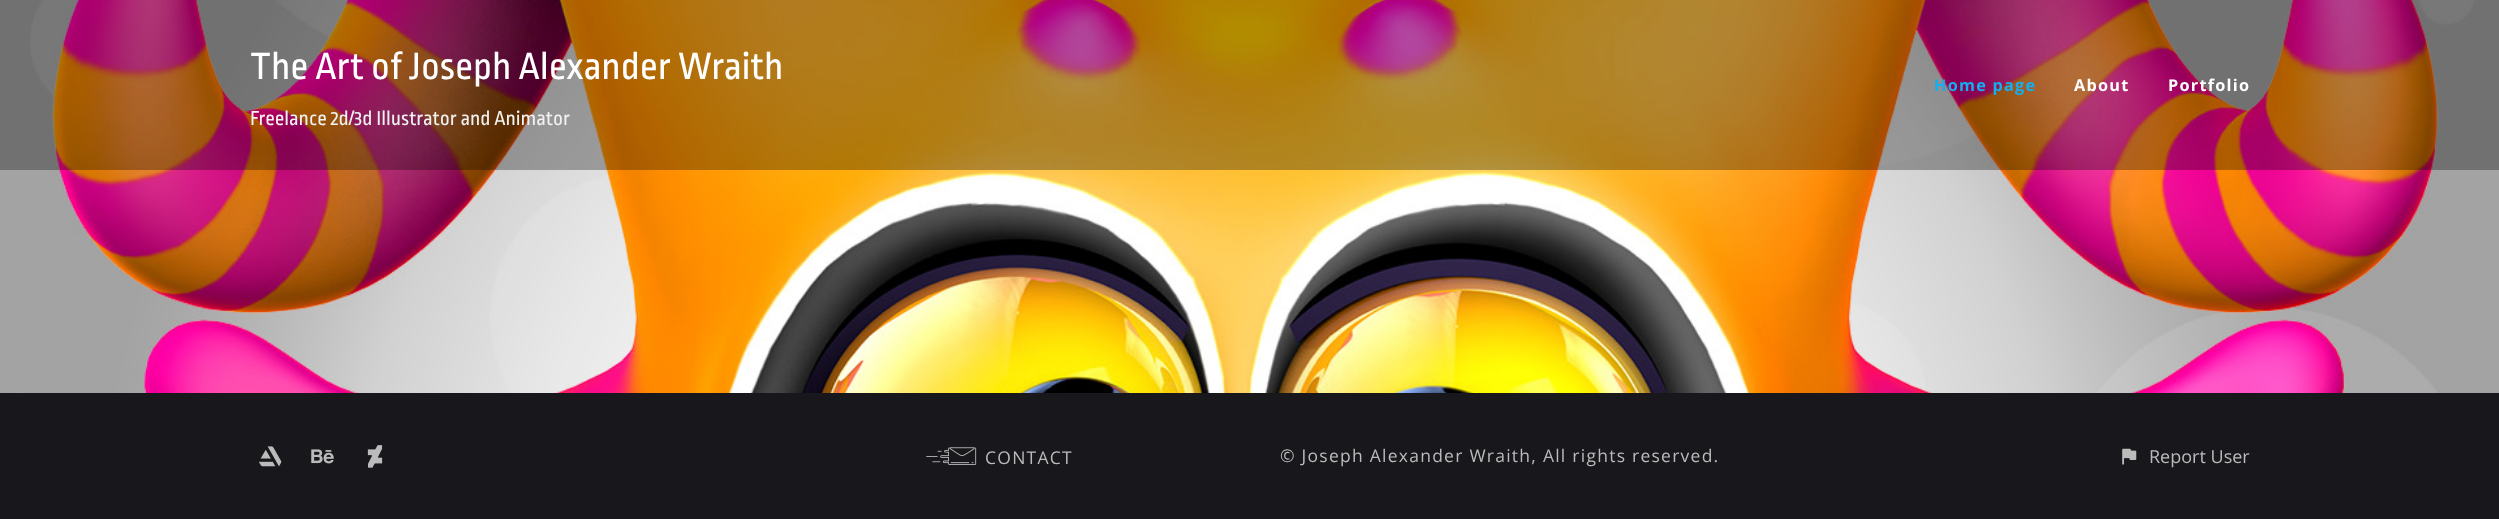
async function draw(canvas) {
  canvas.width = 2499
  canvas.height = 519
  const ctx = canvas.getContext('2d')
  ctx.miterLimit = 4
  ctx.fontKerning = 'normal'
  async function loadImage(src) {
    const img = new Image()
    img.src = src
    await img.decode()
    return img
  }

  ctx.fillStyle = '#fff'
  ctx.fillRect(0, 0, 2499, 519)
  ctx.drawImage(await loadImage('image0.png'), 0, 0, 2499, 393)
  ctx.fillStyle = '#0000004d'
  ctx.fillRect(0, 0, 2499, 170)
  ctx.font = '40px Ropa Sans'
  ctx.fillStyle = '#fff'
  ctx.fillText('The Art of Joseph Alexander Wraith', 250, 79)
  ctx.font = '21.25px Ropa Sans'
  ctx.fillStyle = '#f1f1f1'
  ctx.fillText('Freelance 2d/3d Illustrator and Animator', 250, 125)
  ctx.letterSpacing = '1.25px'
  ctx.font = 'bold 16.25px Open Sans'
  ctx.fillStyle = '#13aff0'
  ctx.fillText('Home page', 1934, 91)
  ctx.fillStyle = '#fff'
  ctx.fillText('About', 2074, 91)
  ctx.fillText('Portfolio', 2168, 91)
  ctx.fillStyle = '#18181c'
  ctx.fillRect(0, 393, 2499, 126)
  ctx.drawImage(await loadImage('image1.png'), 258, 446, 24, 21)
  ctx.drawImage(await loadImage('image2.png'), 311, 449, 23, 15)
  ctx.drawImage(await loadImage('image3.png'), 367, 445, 16, 23)
  ctx.drawImage(await loadImage('image4.png'), 926, 447, 51, 18)
  ctx.font = '17.5px Open Sans'
  ctx.fillStyle = '#bbb'
  ctx.fillText('CONTACT', 985, 464)
  ctx.fillText('© Joseph Alexander Wraith, All rights reserved.', 1280, 462)
  ctx.drawImage(await loadImage('image5.png'), 2122, 448, 15, 17)
  ctx.letterSpacing = '0px'
  ctx.font = '18px Open Sans'
  ctx.fillText('Report User', 2149, 463)
}

draw(document.querySelector('canvas'))
